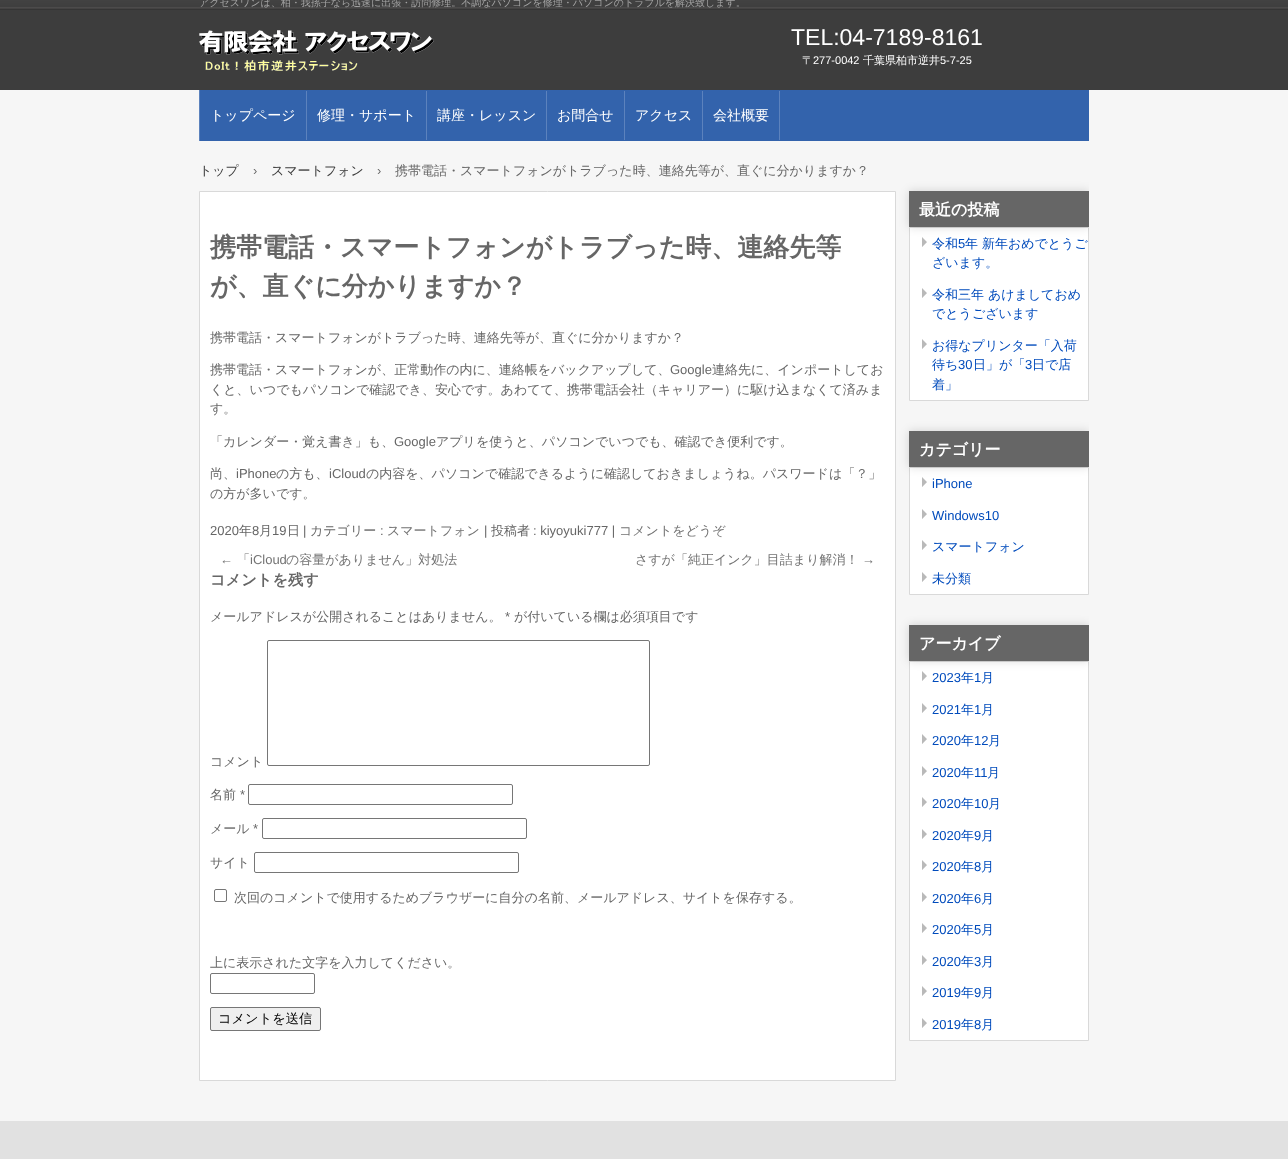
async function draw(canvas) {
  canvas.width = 1288
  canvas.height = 1159
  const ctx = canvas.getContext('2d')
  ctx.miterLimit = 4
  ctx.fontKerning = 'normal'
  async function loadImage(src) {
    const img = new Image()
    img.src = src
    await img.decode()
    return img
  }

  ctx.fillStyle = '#f6f6f6'
  ctx.fillRect(0, 0, 1288, 1159)
  ctx.fillStyle = '#3d3d3d'
  ctx.fillRect(0, 10, 1288, 80)
  ctx.drawImage(await loadImage('image0.png'), 0, 0, 1288, 10)
  ctx.font = '500 10px WenQuanYi Zen Hei'
  ctx.fillStyle = '#a4a4a4'
  ctx.fillText('アクセスワンは、柏・我孫子なら迅速に出張・訪問修理。不調なパソコンを修理・パソコンのトラブルを解決致します。', 199, 6)
  ctx.drawImage(await loadImage('image1.png'), 199, 30, 235, 42)
  ctx.font = '23px Liberation Sans'
  ctx.fillStyle = '#fff'
  ctx.fillText('TEL:04-7189-8161', 791, 45)
  ctx.font = '500 11px WenQuanYi Zen Hei'
  ctx.fillText('〒', 802, 64)
  ctx.font = '11px Liberation Sans'
  ctx.fillText('277-0042', 813, 64)
  ctx.font = '500 11px WenQuanYi Zen Hei'
  ctx.fillText('千葉県柏市逆井', 863, 64)
  ctx.font = '11px Liberation Sans'
  ctx.fillText('5-7-25', 940, 64)
  ctx.fillStyle = '#3363ac'
  ctx.fillRect(200, 90, 889, 51)
  ctx.fillStyle = '#5c82bd'
  ctx.fillRect(199, 90, 1, 51)
  ctx.fillRect(306, 91, 1, 49)
  ctx.font = '500 14px WenQuanYi Zen Hei'
  ctx.fillStyle = '#fff'
  ctx.fillText('トップページ', 210, 120)
  ctx.fillStyle = '#5c82bd'
  ctx.fillRect(426, 91, 1, 49)
  ctx.fillStyle = '#fff'
  ctx.fillText('修理・サポート', 317, 120)
  ctx.fillStyle = '#5c82bd'
  ctx.fillRect(546, 91, 1, 49)
  ctx.fillStyle = '#fff'
  ctx.fillText('講座・レッスン', 437, 120)
  ctx.fillStyle = '#5c82bd'
  ctx.fillRect(624, 91, 1, 49)
  ctx.fillStyle = '#fff'
  ctx.fillText('お問合せ', 557, 120)
  ctx.fillStyle = '#5c82bd'
  ctx.fillRect(702, 91, 1, 49)
  ctx.fillStyle = '#fff'
  ctx.fillText('アクセス', 635, 120)
  ctx.fillStyle = '#5c82bd'
  ctx.fillRect(779, 91, 1, 49)
  ctx.fillStyle = '#fff'
  ctx.fillText('会社概要', 713, 120)
  ctx.font = '500 13px WenQuanYi Zen Hei'
  ctx.fillStyle = '#3c3c3c'
  ctx.fillText('トップ', 199, 175)
  ctx.font = '13px Liberation Sans'
  ctx.fillStyle = '#666'
  ctx.fillText('›', 253, 175)
  ctx.font = '500 13px WenQuanYi Zen Hei'
  ctx.fillStyle = '#3c3c3c'
  ctx.fillText('スマートフォン', 271, 175)
  ctx.font = '13px Liberation Sans'
  ctx.fillStyle = '#666'
  ctx.fillText('›', 377, 175)
  ctx.font = '500 13px WenQuanYi Zen Hei'
  ctx.fillText('携帯電話・スマートフォンがトラブった時、連絡先等が、直ぐに分かりますか？', 395, 175)
  ctx.fillStyle = '#fff'
  ctx.beginPath()
  ctx.rect(199.5, 191.5, 696, 889)
  ctx.fill()
  ctx.strokeStyle = '#d9d9d9'
  ctx.stroke()
  ctx.font = 'bold 26px WenQuanYi Zen Hei'
  ctx.fillStyle = '#666'
  ctx.fillText('携帯電話・スマートフォンがトラブった時、連絡先等', 210, 256)
  ctx.fillText('が、直ぐに分かりますか？', 210, 295)
  ctx.font = '500 13px WenQuanYi Zen Hei'
  ctx.fillText('携帯電話・スマートフォンがトラブった時、連絡先等が、直ぐに分かりますか？', 210, 342)
  ctx.fillText('携帯電話・スマートフォンが、正常動作の内に、連絡帳をバックアップして、', 210, 374)
  ctx.font = '13px Liberation Sans'
  ctx.fillText('Google', 670, 374)
  ctx.font = '500 13px WenQuanYi Zen Hei'
  ctx.fillText('連絡先に、インポートしてお', 712, 374)
  ctx.fillText('くと、いつでもパソコンで確認でき、安心です。あわてて、携帯電話会社（キャリアー）に駆け込まなくて済みま', 210, 394)
  ctx.fillText('す。', 210, 413)
  ctx.fillText('「カレンダー・覚え書き」も、', 210, 446)
  ctx.font = '13px Liberation Sans'
  ctx.fillText('Google', 394, 446)
  ctx.font = '500 13px WenQuanYi Zen Hei'
  ctx.fillText('アプリを使うと、パソコンでいつでも、確認でき便利です。', 436, 446)
  ctx.fillText('尚、', 210, 478)
  ctx.font = '13px Liberation Sans'
  ctx.fillText('iPhone', 236, 478)
  ctx.font = '500 13px WenQuanYi Zen Hei'
  ctx.fillText('の方も、', 276, 478)
  ctx.font = '13px Liberation Sans'
  ctx.fillText('iCloud', 329, 478)
  ctx.font = '500 13px WenQuanYi Zen Hei'
  ctx.fillText('の内容を、パソコンで確認できるように確認しておきましょうね。パスワードは「？」', 366, 478)
  ctx.fillText('の方が多いです。', 210, 498)
  ctx.font = '13px Liberation Sans'
  ctx.fillText('2020', 210, 535)
  ctx.font = '500 13px WenQuanYi Zen Hei'
  ctx.fillText('年', 239, 535)
  ctx.font = '13px Liberation Sans'
  ctx.fillText('8', 252, 535)
  ctx.font = '500 13px WenQuanYi Zen Hei'
  ctx.fillText('月', 259, 535)
  ctx.font = '13px Liberation Sans'
  ctx.fillText('19', 272, 535)
  ctx.font = '500 13px WenQuanYi Zen Hei'
  ctx.fillText('日', 287, 535)
  ctx.font = '13px Liberation Sans'
  ctx.fillText('|', 303, 535)
  ctx.font = '500 13px WenQuanYi Zen Hei'
  ctx.fillText('カテゴリー', 310, 535)
  ctx.font = '13px Liberation Sans'
  ctx.fillText(':', 380, 535)
  ctx.font = '500 13px WenQuanYi Zen Hei'
  ctx.fillStyle = '#737373'
  ctx.fillText('スマートフォン', 387, 535)
  ctx.font = '13px Liberation Sans'
  ctx.fillStyle = '#666'
  ctx.fillText('|', 484, 535)
  ctx.font = '500 13px WenQuanYi Zen Hei'
  ctx.fillText('投稿者', 491, 535)
  ctx.font = '13px Liberation Sans'
  ctx.fillText(': kiyoyuki777 |', 533, 535)
  ctx.font = '500 13px WenQuanYi Zen Hei'
  ctx.fillStyle = '#737373'
  ctx.fillText('コメントをどうぞ', 619, 535)
  ctx.font = '13px Liberation Sans'
  ctx.fillText('←', 220, 564)
  ctx.font = '500 13px WenQuanYi Zen Hei'
  ctx.fillText('「', 237, 564)
  ctx.font = '13px Liberation Sans'
  ctx.fillText('iCloud', 250, 564)
  ctx.font = '500 13px WenQuanYi Zen Hei'
  ctx.fillText('の容量がありません」対処法', 286, 564)
  ctx.fillText('さすが「純正インク」目詰まり解消！', 635, 564)
  ctx.font = '13px Liberation Sans'
  ctx.fillText('→', 862, 564)
  ctx.font = 'bold 15.25px WenQuanYi Zen Hei'
  ctx.fillStyle = '#666'
  ctx.fillText('コメントを残す', 210, 585)
  ctx.font = '500 13px WenQuanYi Zen Hei'
  ctx.fillText('メールアドレスが公開されることはありません。', 210, 621)
  ctx.font = '13px Liberation Sans'
  ctx.fillText('*', 505, 621)
  ctx.font = '500 13px WenQuanYi Zen Hei'
  ctx.fillText('が付いている欄は必須項目です', 514, 621)
  ctx.fillText('コメント', 210, 766)
  ctx.beginPath()
  ctx.roundRect(267.5, 640.5, 382, 125, 1.5)
  ctx.strokeStyle = '#767676'
  ctx.stroke()
  ctx.fillText('名前', 210, 799)
  ctx.font = '13px Liberation Sans'
  ctx.fillText('*', 240, 799)
  ctx.beginPath()
  ctx.roundRect(248.5, 784.5, 264, 20, 1.5)
  ctx.stroke()
  ctx.font = '500 13px WenQuanYi Zen Hei'
  ctx.fillText('メール', 210, 833)
  ctx.font = '13px Liberation Sans'
  ctx.fillText('*', 253, 833)
  ctx.beginPath()
  ctx.roundRect(262.5, 818.5, 264, 20, 1.5)
  ctx.stroke()
  ctx.font = '500 13px WenQuanYi Zen Hei'
  ctx.fillText('サイト', 210, 867)
  ctx.beginPath()
  ctx.roundRect(254.5, 852.5, 264, 20, 1.5)
  ctx.stroke()
  ctx.beginPath()
  ctx.roundRect(214.5, 889.5, 12, 12, 1.5)
  ctx.stroke()
  ctx.fillText('次回のコメントで使用するためブラウザーに自分の名前、メールアドレス、サイトを保存する。', 234, 902)
  ctx.fillText('上に表示された文字を入力してください。', 210, 967)
  ctx.beginPath()
  ctx.roundRect(210.5, 973.5, 104, 20, 1.5)
  ctx.stroke()
  ctx.fillStyle = '#efefef'
  ctx.beginPath()
  ctx.roundRect(210.5, 1007.5, 110, 23, 1.5)
  ctx.fill()
  ctx.stroke()
  ctx.font = '500 13.25px WenQuanYi Zen Hei'
  ctx.fillStyle = '#000'
  ctx.fillText('コメントを送信', 218, 1023)
  ctx.fillStyle = '#fff'
  ctx.beginPath()
  ctx.rect(909.5, 227.5, 179, 173)
  ctx.fill()
  ctx.strokeStyle = '#d9d9d9'
  ctx.stroke()
  ctx.drawImage(await loadImage('image2.png'), 922, 237, 5, 10)
  ctx.save()
  ctx.beginPath()
  ctx.rect(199, 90, 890, 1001)
  ctx.clip()
  ctx.fillStyle = '#00000026'
  ctx.filter = 'blur(5px)'
  ctx.beginPath()
  ctx.rect(909, 191, 180, 36)
  ctx.fill()
  ctx.filter = 'none'
  ctx.restore()
  ctx.fillStyle = '#666'
  ctx.fillRect(909, 191, 180, 36)
  ctx.font = 'bold 16px WenQuanYi Zen Hei'
  ctx.fillStyle = '#fff'
  ctx.fillText('最近の投稿', 919, 215)
  ctx.font = '500 13px WenQuanYi Zen Hei'
  ctx.fillStyle = '#004bbc'
  ctx.fillText('令和', 932, 248)
  ctx.font = '13px Liberation Sans'
  ctx.fillText('5', 958, 248)
  ctx.font = '500 13px WenQuanYi Zen Hei'
  ctx.fillText('年 新年おめでとうご', 965, 248)
  ctx.fillText('ざいます。', 932, 267)
  ctx.drawImage(await loadImage('image2.png'), 922, 288, 5, 10)
  ctx.fillText('令和三年 あけましておめ', 932, 299)
  ctx.fillText('でとうございます', 932, 318)
  ctx.drawImage(await loadImage('image2.png'), 922, 339, 5, 10)
  ctx.fillText('お得なプリンター「入荷', 932, 350)
  ctx.fillText('待ち', 932, 369)
  ctx.font = '13px Liberation Sans'
  ctx.fillText('30', 958, 369)
  ctx.font = '500 13px WenQuanYi Zen Hei'
  ctx.fillText('日」が「', 973, 369)
  ctx.font = '13px Liberation Sans'
  ctx.fillText('3', 1025, 369)
  ctx.font = '500 13px WenQuanYi Zen Hei'
  ctx.fillText('日で店', 1032, 369)
  ctx.fillText('着」', 932, 389)
  ctx.fillStyle = '#fff'
  ctx.beginPath()
  ctx.rect(909.5, 467.5, 179, 127)
  ctx.fill()
  ctx.stroke()
  ctx.drawImage(await loadImage('image2.png'), 922, 477, 5, 10)
  ctx.save()
  ctx.beginPath()
  ctx.rect(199, 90, 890, 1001)
  ctx.clip()
  ctx.fillStyle = '#00000026'
  ctx.filter = 'blur(5px)'
  ctx.beginPath()
  ctx.rect(909, 431, 180, 36)
  ctx.fill()
  ctx.filter = 'none'
  ctx.restore()
  ctx.fillStyle = '#666'
  ctx.fillRect(909, 431, 180, 36)
  ctx.font = 'bold 16px WenQuanYi Zen Hei'
  ctx.fillStyle = '#fff'
  ctx.fillText('カテゴリー', 919, 455)
  ctx.font = '13px Liberation Sans'
  ctx.fillStyle = '#004bbc'
  ctx.fillText('iPhone', 932, 488)
  ctx.drawImage(await loadImage('image2.png'), 922, 509, 5, 10)
  ctx.fillText('Windows10', 932, 520)
  ctx.drawImage(await loadImage('image2.png'), 922, 540, 5, 10)
  ctx.font = '500 13px WenQuanYi Zen Hei'
  ctx.fillText('スマートフォン', 932, 551)
  ctx.drawImage(await loadImage('image2.png'), 922, 572, 5, 10)
  ctx.fillText('未分類', 932, 583)
  ctx.fillStyle = '#fff'
  ctx.beginPath()
  ctx.rect(909.5, 661.5, 179, 379)
  ctx.fill()
  ctx.stroke()
  ctx.drawImage(await loadImage('image2.png'), 922, 671, 5, 10)
  ctx.save()
  ctx.beginPath()
  ctx.rect(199, 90, 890, 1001)
  ctx.clip()
  ctx.fillStyle = '#00000026'
  ctx.filter = 'blur(5px)'
  ctx.beginPath()
  ctx.rect(909, 625, 180, 36)
  ctx.fill()
  ctx.filter = 'none'
  ctx.restore()
  ctx.fillStyle = '#666'
  ctx.fillRect(909, 625, 180, 36)
  ctx.font = 'bold 16px WenQuanYi Zen Hei'
  ctx.fillStyle = '#fff'
  ctx.fillText('アーカイブ', 919, 649)
  ctx.font = '13px Liberation Sans'
  ctx.fillStyle = '#004bbc'
  ctx.fillText('2023', 932, 682)
  ctx.font = '500 13px WenQuanYi Zen Hei'
  ctx.fillText('年', 961, 682)
  ctx.font = '13px Liberation Sans'
  ctx.fillText('1', 974, 682)
  ctx.font = '500 13px WenQuanYi Zen Hei'
  ctx.fillText('月', 981, 682)
  ctx.drawImage(await loadImage('image2.png'), 922, 703, 5, 10)
  ctx.font = '13px Liberation Sans'
  ctx.fillText('2021', 932, 714)
  ctx.font = '500 13px WenQuanYi Zen Hei'
  ctx.fillText('年', 961, 714)
  ctx.font = '13px Liberation Sans'
  ctx.fillText('1', 974, 714)
  ctx.font = '500 13px WenQuanYi Zen Hei'
  ctx.fillText('月', 981, 714)
  ctx.drawImage(await loadImage('image2.png'), 922, 734, 5, 10)
  ctx.font = '13px Liberation Sans'
  ctx.fillText('2020', 932, 745)
  ctx.font = '500 13px WenQuanYi Zen Hei'
  ctx.fillText('年', 961, 745)
  ctx.font = '13px Liberation Sans'
  ctx.fillText('12', 974, 745)
  ctx.font = '500 13px WenQuanYi Zen Hei'
  ctx.fillText('月', 988, 745)
  ctx.drawImage(await loadImage('image2.png'), 922, 766, 5, 10)
  ctx.font = '13px Liberation Sans'
  ctx.fillText('2020', 932, 777)
  ctx.font = '500 13px WenQuanYi Zen Hei'
  ctx.fillText('年', 961, 777)
  ctx.font = '13px Liberation Sans'
  ctx.fillText('11', 974, 777)
  ctx.font = '500 13px WenQuanYi Zen Hei'
  ctx.fillText('月', 987, 777)
  ctx.drawImage(await loadImage('image2.png'), 922, 797, 5, 10)
  ctx.font = '13px Liberation Sans'
  ctx.fillText('2020', 932, 808)
  ctx.font = '500 13px WenQuanYi Zen Hei'
  ctx.fillText('年', 961, 808)
  ctx.font = '13px Liberation Sans'
  ctx.fillText('10', 974, 808)
  ctx.font = '500 13px WenQuanYi Zen Hei'
  ctx.fillText('月', 988, 808)
  ctx.drawImage(await loadImage('image2.png'), 922, 829, 5, 10)
  ctx.font = '13px Liberation Sans'
  ctx.fillText('2020', 932, 840)
  ctx.font = '500 13px WenQuanYi Zen Hei'
  ctx.fillText('年', 961, 840)
  ctx.font = '13px Liberation Sans'
  ctx.fillText('9', 974, 840)
  ctx.font = '500 13px WenQuanYi Zen Hei'
  ctx.fillText('月', 981, 840)
  ctx.drawImage(await loadImage('image2.png'), 922, 860, 5, 10)
  ctx.font = '13px Liberation Sans'
  ctx.fillText('2020', 932, 871)
  ctx.font = '500 13px WenQuanYi Zen Hei'
  ctx.fillText('年', 961, 871)
  ctx.font = '13px Liberation Sans'
  ctx.fillText('8', 974, 871)
  ctx.font = '500 13px WenQuanYi Zen Hei'
  ctx.fillText('月', 981, 871)
  ctx.drawImage(await loadImage('image2.png'), 922, 892, 5, 10)
  ctx.font = '13px Liberation Sans'
  ctx.fillText('2020', 932, 903)
  ctx.font = '500 13px WenQuanYi Zen Hei'
  ctx.fillText('年', 961, 903)
  ctx.font = '13px Liberation Sans'
  ctx.fillText('6', 974, 903)
  ctx.font = '500 13px WenQuanYi Zen Hei'
  ctx.fillText('月', 981, 903)
  ctx.drawImage(await loadImage('image2.png'), 922, 923, 5, 10)
  ctx.font = '13px Liberation Sans'
  ctx.fillText('2020', 932, 934)
  ctx.font = '500 13px WenQuanYi Zen Hei'
  ctx.fillText('年', 961, 934)
  ctx.font = '13px Liberation Sans'
  ctx.fillText('5', 974, 934)
  ctx.font = '500 13px WenQuanYi Zen Hei'
  ctx.fillText('月', 981, 934)
  ctx.drawImage(await loadImage('image2.png'), 922, 955, 5, 10)
  ctx.font = '13px Liberation Sans'
  ctx.fillText('2020', 932, 966)
  ctx.font = '500 13px WenQuanYi Zen Hei'
  ctx.fillText('年', 961, 966)
  ctx.font = '13px Liberation Sans'
  ctx.fillText('3', 974, 966)
  ctx.font = '500 13px WenQuanYi Zen Hei'
  ctx.fillText('月', 981, 966)
  ctx.drawImage(await loadImage('image2.png'), 922, 986, 5, 10)
  ctx.font = '13px Liberation Sans'
  ctx.fillText('2019', 932, 997)
  ctx.font = '500 13px WenQuanYi Zen Hei'
  ctx.fillText('年', 961, 997)
  ctx.font = '13px Liberation Sans'
  ctx.fillText('9', 974, 997)
  ctx.font = '500 13px WenQuanYi Zen Hei'
  ctx.fillText('月', 981, 997)
  ctx.drawImage(await loadImage('image2.png'), 922, 1018, 5, 10)
  ctx.font = '13px Liberation Sans'
  ctx.fillText('2019', 932, 1029)
  ctx.font = '500 13px WenQuanYi Zen Hei'
  ctx.fillText('年', 961, 1029)
  ctx.font = '13px Liberation Sans'
  ctx.fillText('8', 974, 1029)
  ctx.font = '500 13px WenQuanYi Zen Hei'
  ctx.fillText('月', 981, 1029)
  ctx.fillStyle = '#e1e1e1'
  ctx.fillRect(0, 1121, 1288, 38)
}

draw(document.querySelector('canvas'))
